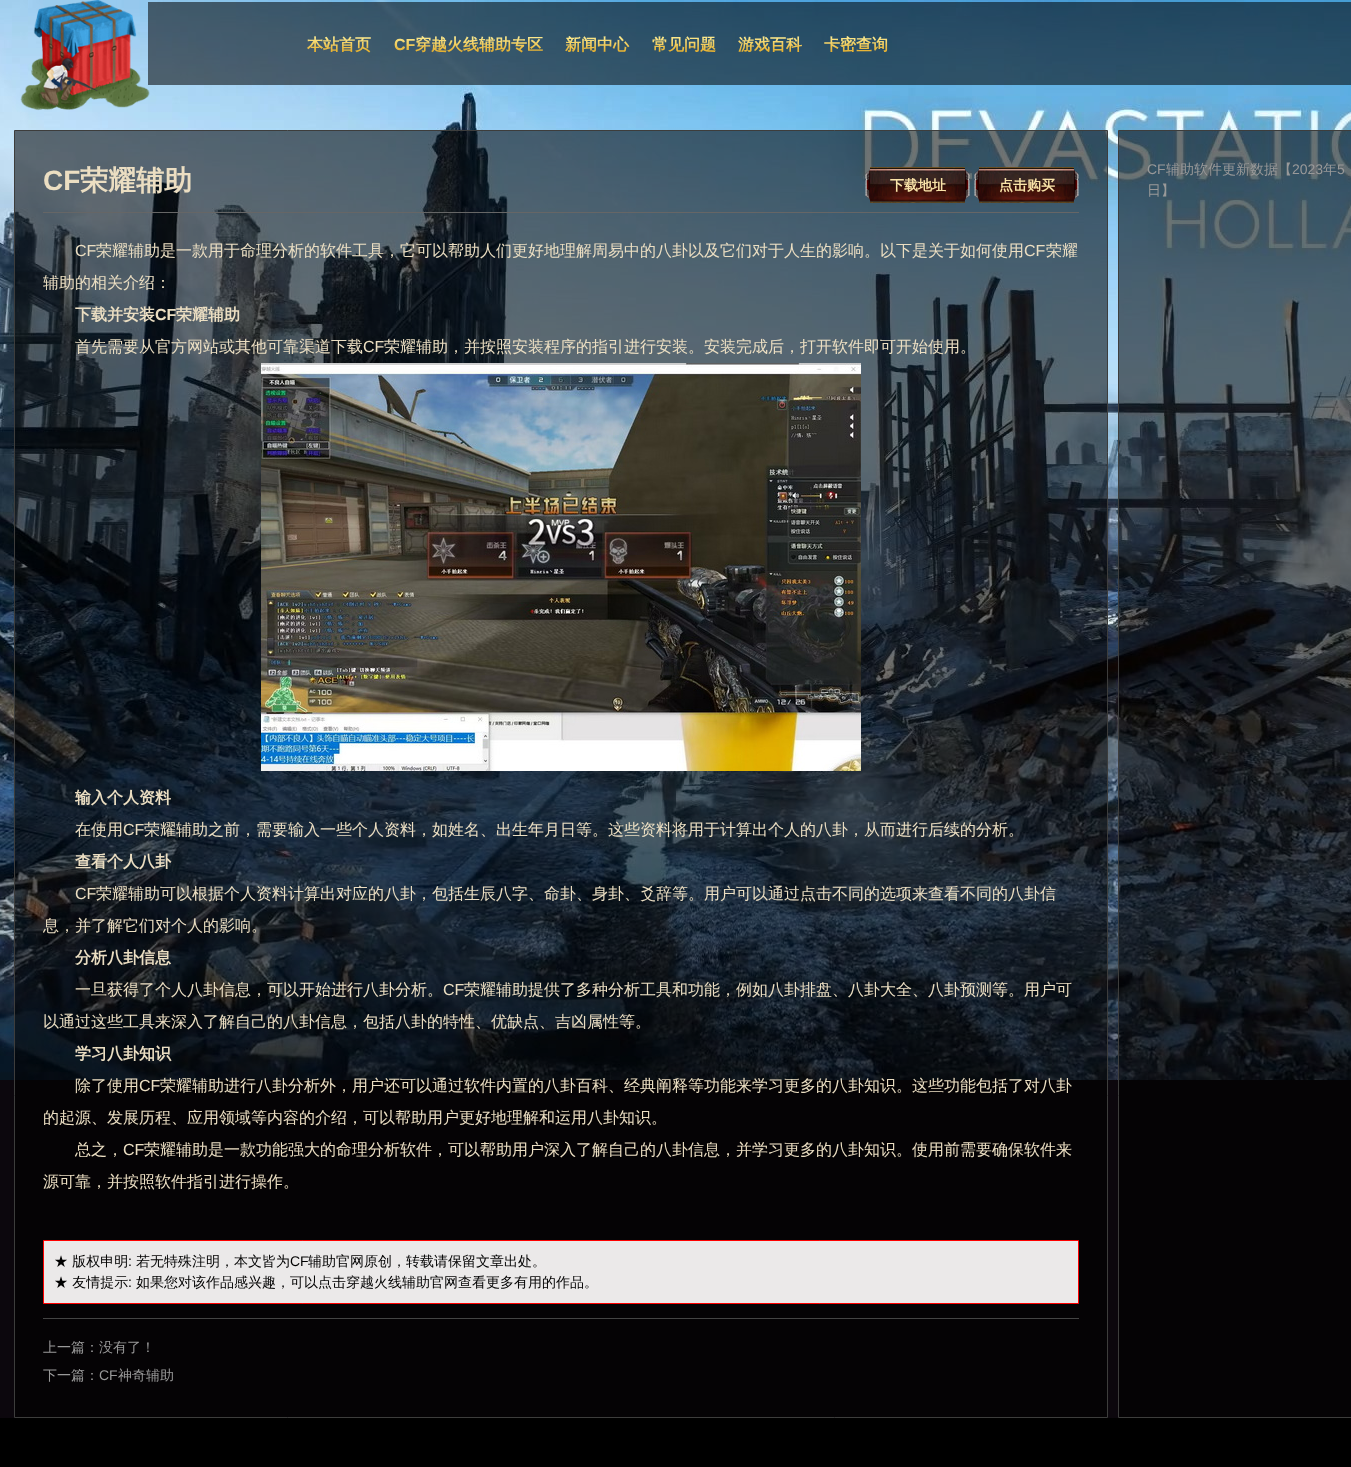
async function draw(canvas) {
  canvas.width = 1351
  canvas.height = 1467
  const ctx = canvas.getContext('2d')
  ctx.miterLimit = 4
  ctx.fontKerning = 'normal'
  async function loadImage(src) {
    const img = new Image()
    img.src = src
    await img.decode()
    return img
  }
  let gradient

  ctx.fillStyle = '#0c070d'
  ctx.fillRect(0, 0, 1351, 1467)
  ctx.drawImage(await loadImage('image0.png'), 0, 0, 1351, 1080)
  ctx.fillStyle = '#0000008c'
  ctx.fillRect(148, 2, 1203, 83)
  ctx.drawImage(await loadImage('image1.png'), 20, 0, 130, 111)
  ctx.font = 'bold 16px WenQuanYi Zen Hei'
  gradient = ctx.createLinearGradient(339, 53, 339, 36)
  gradient.addColorStop(0, '#e3ab27')
  gradient.addColorStop(1, '#fded95')
  ctx.fillStyle = gradient
  ctx.fillText('本站首页', 307, 50)
  ctx.font = 'bold 16px Liberation Sans'
  gradient = ctx.createLinearGradient(468, 53, 468, 36)
  gradient.addColorStop(0, '#e3ab27')
  gradient.addColorStop(1, '#fded95')
  ctx.fillStyle = gradient
  ctx.fillText('CF', 394, 50)
  ctx.font = 'bold 16px WenQuanYi Zen Hei'
  ctx.fillText('穿越火线辅助专区', 415, 50)
  gradient = ctx.createLinearGradient(597, 53, 597, 36)
  gradient.addColorStop(0, '#e3ab27')
  gradient.addColorStop(1, '#fded95')
  ctx.fillStyle = gradient
  ctx.fillText('新闻中心', 565, 50)
  gradient = ctx.createLinearGradient(684, 53, 684, 36)
  gradient.addColorStop(0, '#e3ab27')
  gradient.addColorStop(1, '#fded95')
  ctx.fillStyle = gradient
  ctx.fillText('常见问题', 652, 50)
  gradient = ctx.createLinearGradient(770, 53, 770, 36)
  gradient.addColorStop(0, '#e3ab27')
  gradient.addColorStop(1, '#fded95')
  ctx.fillStyle = gradient
  ctx.fillText('游戏百科', 738, 50)
  gradient = ctx.createLinearGradient(856, 53, 856, 36)
  gradient.addColorStop(0, '#e3ab27')
  gradient.addColorStop(1, '#fded95')
  ctx.fillStyle = gradient
  ctx.fillText('卡密查询', 824, 50)
  ctx.fillStyle = '#0000008c'
  ctx.beginPath()
  ctx.rect(14.5, 130.5, 1093, 1287)
  ctx.fill()
  ctx.strokeStyle = '#3d3d3c'
  ctx.stroke()
  ctx.fillStyle = '#666'
  ctx.fillRect(43, 212, 1036, 1)
  ctx.font = 'bold 28px Liberation Sans'
  ctx.fillStyle = '#ebdec2'
  ctx.fillText('CF', 43, 190)
  ctx.font = 'bold 28px WenQuanYi Zen Hei'
  ctx.fillText('荣耀辅助', 80, 190)
  ctx.drawImage(await loadImage('image2.png'), 865, 167, 105, 36)
  ctx.font = 'bold 14px WenQuanYi Zen Hei'
  ctx.fillStyle = '#fae4a9'
  ctx.fillText('下载地址', 890, 190)
  ctx.drawImage(await loadImage('image3.png'), 974, 167, 105, 36)
  ctx.fillText('点击购买', 999, 190)
  ctx.font = '16px Liberation Sans'
  ctx.fillStyle = '#ebdec2'
  ctx.fillText('CF', 75, 256)
  ctx.font = '500 16px WenQuanYi Zen Hei'
  ctx.fillText('荣耀辅助是一款用于命理分析的软件工具，它可以帮助人们更好地理解周易中的八卦以及它们对于人生的影响。以下是关于如何使用', 96, 256)
  ctx.font = '16px Liberation Sans'
  ctx.fillText('CF', 1024, 256)
  ctx.font = '500 16px WenQuanYi Zen Hei'
  ctx.fillText('荣耀', 1046, 256)
  ctx.fillText('辅助的相关介绍：', 43, 288)
  ctx.font = 'bold 16px WenQuanYi Zen Hei'
  ctx.fillText('下载并安装', 75, 320)
  ctx.font = 'bold 16px Liberation Sans'
  ctx.fillText('CF', 155, 320)
  ctx.font = 'bold 16px WenQuanYi Zen Hei'
  ctx.fillText('荣耀辅助', 176, 320)
  ctx.font = '500 16px WenQuanYi Zen Hei'
  ctx.fillText('首先需要从官方网站或其他可靠渠道下载', 75, 352)
  ctx.font = '16px Liberation Sans'
  ctx.fillText('CF', 363, 352)
  ctx.font = '500 16px WenQuanYi Zen Hei'
  ctx.fillText('荣耀辅助，并按照安装程序的指引进行安装。安装完成后，打开软件即可开始使用。', 384, 352)
  ctx.drawImage(await loadImage('image4.png'), 261, 363, 600, 408)
  ctx.font = 'bold 16px WenQuanYi Zen Hei'
  ctx.fillText('输入个人资料', 75, 803)
  ctx.font = '500 16px WenQuanYi Zen Hei'
  ctx.fillText('在使用', 75, 835)
  ctx.font = '16px Liberation Sans'
  ctx.fillText('CF', 123, 835)
  ctx.font = '500 16px WenQuanYi Zen Hei'
  ctx.fillText('荣耀辅助之前，需要输入一些个人资料，如姓名、出生年月日等。这些资料将用于计算出个人的八卦，从而进行后续的分析。', 144, 835)
  ctx.font = 'bold 16px WenQuanYi Zen Hei'
  ctx.fillText('查看个人八卦', 75, 867)
  ctx.font = '16px Liberation Sans'
  ctx.fillText('CF', 75, 899)
  ctx.font = '500 16px WenQuanYi Zen Hei'
  ctx.fillText('荣耀辅助可以根据个人资料计算出对应的八卦，包括生辰八字、命卦、身卦、爻辞等。用户可以通过点击不同的选项来查看不同的八卦信', 96, 899)
  ctx.fillText('息，并了解它们对个人的影响。', 43, 931)
  ctx.font = 'bold 16px WenQuanYi Zen Hei'
  ctx.fillText('分析八卦信息', 75, 963)
  ctx.font = '500 16px WenQuanYi Zen Hei'
  ctx.fillText('一旦获得了个人八卦信息，可以开始进行八卦分析。', 75, 995)
  ctx.font = '16px Liberation Sans'
  ctx.fillText('CF', 443, 995)
  ctx.font = '500 16px WenQuanYi Zen Hei'
  ctx.fillText('荣耀辅助提供了多种分析工具和功能，例如八卦排盘、八卦大全、八卦预测等。用户可', 464, 995)
  ctx.fillText('以通过这些工具来深入了解自己的八卦信息，包括八卦的特性、优缺点、吉凶属性等。', 43, 1027)
  ctx.font = 'bold 16px WenQuanYi Zen Hei'
  ctx.fillText('学习八卦知识', 75, 1059)
  ctx.font = '500 16px WenQuanYi Zen Hei'
  ctx.fillText('除了使用', 75, 1091)
  ctx.font = '16px Liberation Sans'
  ctx.fillText('CF', 139, 1091)
  ctx.font = '500 16px WenQuanYi Zen Hei'
  ctx.fillText('荣耀辅助进行八卦分析外，用户还可以通过软件内置的八卦百科、经典阐释等功能来学习更多的八卦知识。这些功能包括了对八卦', 160, 1091)
  ctx.fillText('的起源、发展历程、应用领域等内容的介绍，可以帮助用户更好地理解和运用八卦知识。', 43, 1123)
  ctx.fillText('总之，', 75, 1155)
  ctx.font = '16px Liberation Sans'
  ctx.fillText('CF', 123, 1155)
  ctx.font = '500 16px WenQuanYi Zen Hei'
  ctx.fillText('荣耀辅助是一款功能强大的命理分析软件，可以帮助用户深入了解自己的八卦信息，并学习更多的八卦知识。使用前需要确保软件来', 144, 1155)
  ctx.fillText('源可靠，并按照软件指引进行操作。', 43, 1187)
  ctx.fillStyle = '#ebe9e9'
  ctx.beginPath()
  ctx.rect(43.5, 1240.5, 1035, 63)
  ctx.fill()
  ctx.strokeStyle = '#f00'
  ctx.stroke()
  ctx.font = '500 14px WenQuanYi Zen Hei'
  ctx.fillStyle = '#000'
  ctx.fillText('★ 版权申明', 54, 1266)
  ctx.font = '14px Liberation Sans'
  ctx.fillText(':', 128, 1266)
  ctx.font = '500 14px WenQuanYi Zen Hei'
  ctx.fillText('若无特殊注明，本文皆为', 136, 1266)
  ctx.font = '14px Liberation Sans'
  ctx.fillText('CF', 290, 1266)
  ctx.font = '500 14px WenQuanYi Zen Hei'
  ctx.fillText('辅助官网原创，转载请保留文章出处。', 308, 1266)
  ctx.fillText('★ 友情提示', 54, 1287)
  ctx.font = '14px Liberation Sans'
  ctx.fillText(':', 128, 1287)
  ctx.font = '500 14px WenQuanYi Zen Hei'
  ctx.fillText('如果您对该作品感兴趣，可以点击穿越火线辅助官网查看更多有用的作品。', 136, 1287)
  ctx.fillStyle = '#444'
  ctx.fillRect(43, 1318, 1036, 1)
  ctx.fillStyle = '#999'
  ctx.fillText('上一篇：没有了！', 43, 1352)
  ctx.fillText('下一篇：', 43, 1380)
  ctx.font = '14px Liberation Sans'
  ctx.fillText('CF', 99, 1380)
  ctx.font = '500 14px WenQuanYi Zen Hei'
  ctx.fillText('神奇辅助', 118, 1380)
  ctx.fillStyle = '#0000008c'
  ctx.beginPath()
  ctx.rect(1118.5, 130.5, 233, 1287)
  ctx.fill()
  ctx.strokeStyle = '#3d3d3c'
  ctx.stroke()
  ctx.font = '14px Liberation Sans'
  ctx.fillStyle = '#999'
  ctx.fillText('CF', 1147, 174)
  ctx.font = '500 14px WenQuanYi Zen Hei'
  ctx.fillText('辅助软件更新数据【', 1166, 174)
  ctx.font = '14px Liberation Sans'
  ctx.fillText('2023', 1292, 174)
  ctx.font = '500 14px WenQuanYi Zen Hei'
  ctx.fillText('年', 1323, 174)
  ctx.font = '14px Liberation Sans'
  ctx.fillText('5', 1337, 174)
  ctx.font = '500 14px WenQuanYi Zen Hei'
  ctx.fillText('日】', 1147, 195)
  ctx.fillStyle = '#000'
  ctx.fillRect(0, 1418, 1351, 49)
}

draw(document.querySelector('canvas'))
